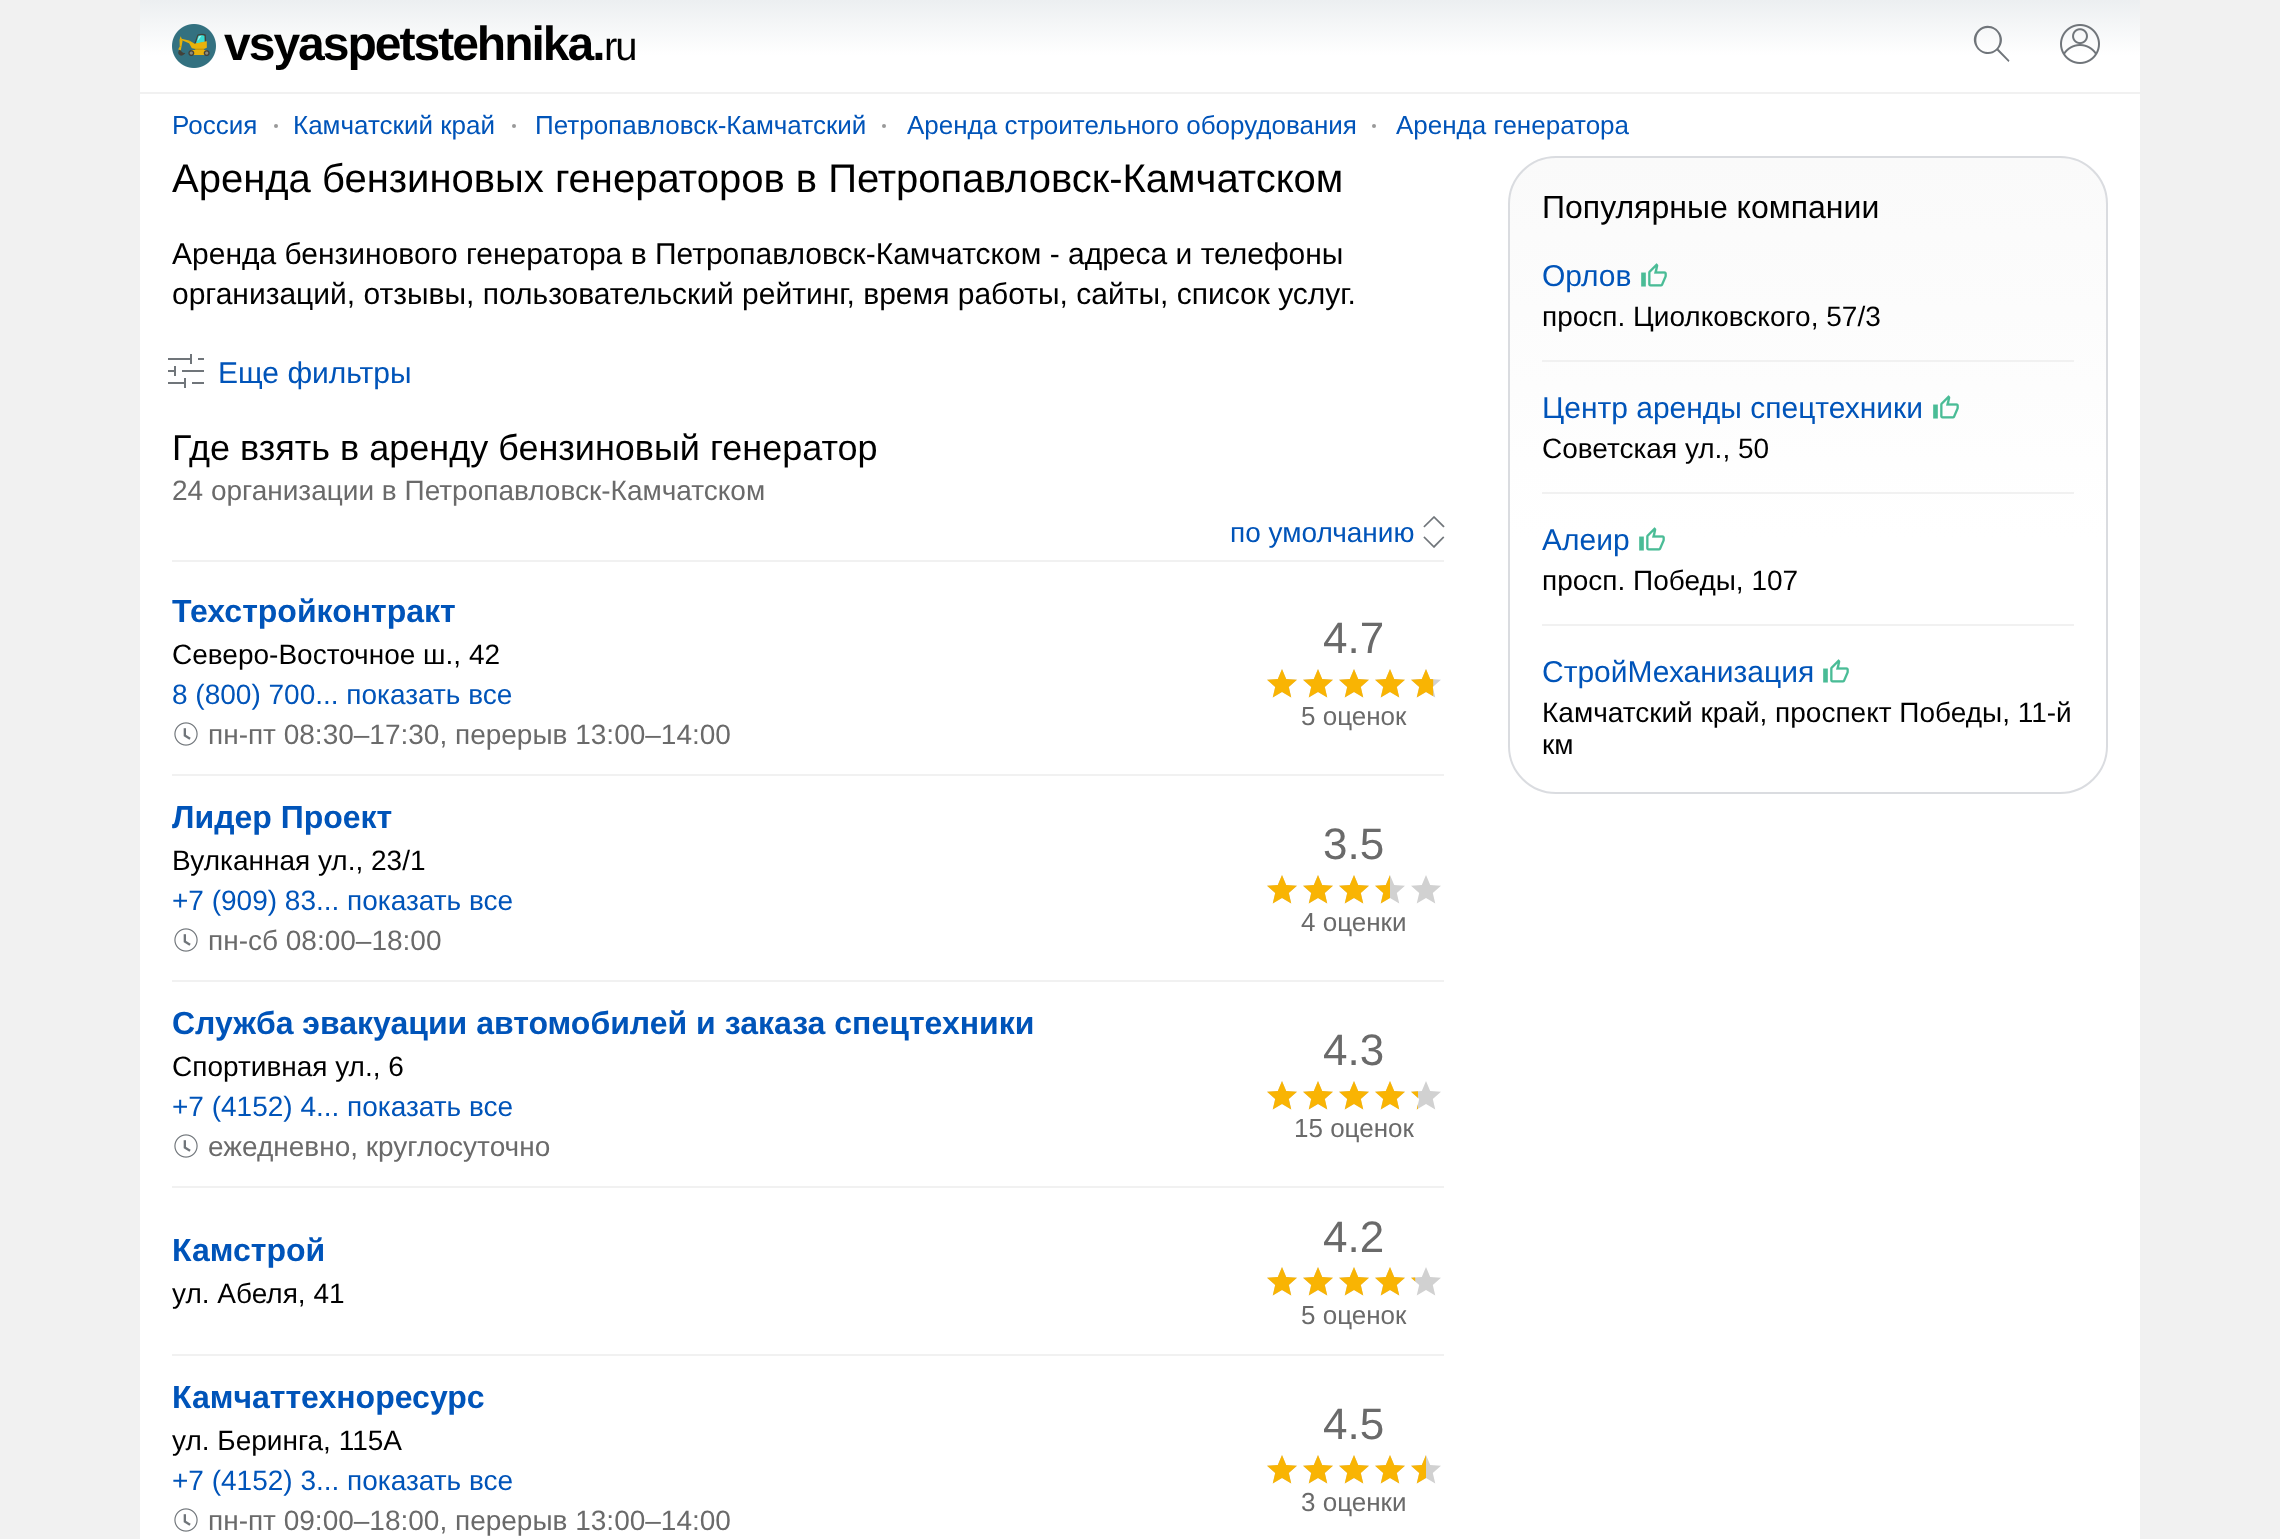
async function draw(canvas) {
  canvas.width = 2280
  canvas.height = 1539
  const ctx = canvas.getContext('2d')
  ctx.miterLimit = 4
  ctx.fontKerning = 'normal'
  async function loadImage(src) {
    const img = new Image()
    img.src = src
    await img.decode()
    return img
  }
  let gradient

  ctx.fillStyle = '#f1f1f1'
  ctx.fillRect(0, 0, 2280, 1539)
  gradient = ctx.createLinearGradient(1140, 0, 1140, 92)
  gradient.addColorStop(0, '#eceff1')
  gradient.addColorStop(0.6, '#fff')
  ctx.fillStyle = gradient
  ctx.fillRect(140, 0, 2000, 92)
  ctx.drawImage(await loadImage('image0.png'), 172, 24, 44, 44)
  ctx.letterSpacing = '-2px'
  ctx.font = 'bold 48px Liberation Sans'
  ctx.fillStyle = '#000'
  ctx.fillText('vsyaspetstehnika.', 224, 60)
  ctx.font = '40px Liberation Sans'
  ctx.fillText('ru', 604, 60)
  ctx.fillStyle = '#70757a'
  ctx.beginPath()
  ctx.moveTo(2009.5, 60.5)
  ctx.lineTo(1998.5, 49)
  ctx.bezierCurveTo(2010, 36, 1991, 17.5, 1978, 30)
  ctx.bezierCurveTo(1965.5, 43, 1984, 62, 1997, 50.5)
  ctx.lineTo(2008.5, 62)
  ctx.closePath()
  ctx.moveTo(1988, 52)
  ctx.bezierCurveTo(1972.5, 52, 1972.5, 28, 1988, 28)
  ctx.bezierCurveTo(2003.5, 28, 2003.5, 52, 1988, 52)
  ctx.closePath()
  ctx.fill()
  ctx.drawImage(await loadImage('image1.png'), 2060, 24, 40, 40)
  ctx.fillStyle = '#fff'
  ctx.fillRect(140, 94, 2000, 1445)
  ctx.letterSpacing = '0px'
  ctx.font = '26px Liberation Sans'
  ctx.fillStyle = '#0054b9'
  ctx.fillText('Россия', 172, 134)
  ctx.fillStyle = '#999'
  ctx.beginPath()
  ctx.arc(276, 126, 2, 0, 2 * Math.PI)
  ctx.fill()
  ctx.fillStyle = '#0054b9'
  ctx.fillText('Камчатский край', 293, 134)
  ctx.fillStyle = '#999'
  ctx.beginPath()
  ctx.arc(514, 126, 2, 0, 2 * Math.PI)
  ctx.fill()
  ctx.fillStyle = '#0054b9'
  ctx.fillText('Петропавловск-Камчатский', 535, 134)
  ctx.fillStyle = '#999'
  ctx.beginPath()
  ctx.arc(884, 126, 2, 0, 2 * Math.PI)
  ctx.fill()
  ctx.fillStyle = '#0054b9'
  ctx.fillText('Аренда строительного оборудования', 907, 134)
  ctx.fillStyle = '#999'
  ctx.beginPath()
  ctx.arc(1374, 126, 2, 0, 2 * Math.PI)
  ctx.fill()
  ctx.fillStyle = '#0054b9'
  ctx.fillText('Аренда генератора', 1396, 134)
  ctx.font = '40px Liberation Sans'
  ctx.fillStyle = '#000'
  ctx.fillText('Аренда бензиновых генераторов в Петропавловск-Камчатском', 172, 192)
  ctx.font = '30px Liberation Sans'
  ctx.fillText('Аренда бензинового генератора в Петропавловск-Камчатском - адреса и телефоны', 172, 264)
  ctx.fillText('организаций, отзывы, пользовательский рейтинг, время работы, сайты, список услуг.', 172, 304)
  ctx.drawImage(await loadImage('image2.png'), 168, 354, 36, 34)
  ctx.fillStyle = '#0054b9'
  ctx.fillText('Еще фильтры', 218, 383)
  ctx.font = '36px Liberation Sans'
  ctx.fillStyle = '#000'
  ctx.fillText('Где взять в аренду бензиновый генератор', 172, 460)
  ctx.font = '28px Liberation Sans'
  ctx.fillStyle = '#6a6a6a'
  ctx.fillText('24 организации в Петропавловск-Камчатском', 172, 500)
  ctx.fillStyle = '#f1f1f1'
  ctx.fillRect(172, 560, 1272, 2)
  ctx.fillStyle = '#0054b9'
  ctx.fillText('по умолчанию', 1230, 542)
  ctx.drawImage(await loadImage('image3.png'), 1423, 516, 22, 32)
  ctx.font = 'bold 32px Liberation Sans'
  ctx.fillText('Техстройконтракт', 172, 622)
  ctx.font = '28px Liberation Sans'
  ctx.fillStyle = '#000'
  ctx.fillText('Северо-Восточное ш., 42', 172, 664)
  ctx.fillStyle = '#0054b9'
  ctx.fillText('8 (800) 700... показать все', 172, 704)
  ctx.drawImage(await loadImage('image4.png'), 174, 722, 24, 24)
  ctx.fillStyle = '#6a6a6a'
  ctx.fillText('пн-пт 08:30–17:30, перерыв 13:00–14:00', 208, 744)
  ctx.font = '44px Liberation Sans'
  ctx.fillText('4.7', 1323, 653)
  ctx.drawImage(await loadImage('image5.png'), 1267, 669, 174, 29)
  ctx.drawImage(await loadImage('image6.png'), 1267, 669, 167, 29)
  ctx.font = '26px Liberation Sans'
  ctx.fillText('5 оценок', 1301, 725)
  ctx.fillStyle = '#f1f1f1'
  ctx.fillRect(172, 774, 1272, 2)
  ctx.font = 'bold 32px Liberation Sans'
  ctx.fillStyle = '#0054b9'
  ctx.fillText('Лидер Проект', 172, 828)
  ctx.font = '28px Liberation Sans'
  ctx.fillStyle = '#000'
  ctx.fillText('Вулканная ул., 23/1', 172, 870)
  ctx.fillStyle = '#0054b9'
  ctx.fillText('+7 (909) 83... показать все', 172, 910)
  ctx.drawImage(await loadImage('image4.png'), 174, 928, 24, 24)
  ctx.fillStyle = '#6a6a6a'
  ctx.fillText('пн-сб 08:00–18:00', 208, 950)
  ctx.font = '44px Liberation Sans'
  ctx.fillText('3.5', 1323, 859)
  ctx.drawImage(await loadImage('image5.png'), 1267, 875, 174, 29)
  ctx.drawImage(await loadImage('image7.png'), 1267, 875, 123, 29)
  ctx.font = '26px Liberation Sans'
  ctx.fillText('4 оценки', 1301, 931)
  ctx.fillStyle = '#f1f1f1'
  ctx.fillRect(172, 980, 1272, 2)
  ctx.font = 'bold 32px Liberation Sans'
  ctx.fillStyle = '#0054b9'
  ctx.fillText('Служба эвакуации автомобилей и заказа спецтехники', 172, 1034)
  ctx.font = '28px Liberation Sans'
  ctx.fillStyle = '#000'
  ctx.fillText('Спортивная ул., 6', 172, 1076)
  ctx.fillStyle = '#0054b9'
  ctx.fillText('+7 (4152) 4... показать все', 172, 1116)
  ctx.drawImage(await loadImage('image4.png'), 174, 1134, 24, 24)
  ctx.fillStyle = '#6a6a6a'
  ctx.fillText('ежедневно, круглосуточно', 208, 1156)
  ctx.font = '44px Liberation Sans'
  ctx.fillText('4.3', 1323, 1065)
  ctx.drawImage(await loadImage('image5.png'), 1267, 1081, 174, 29)
  ctx.drawImage(await loadImage('image8.png'), 1267, 1081, 151, 29)
  ctx.font = '26px Liberation Sans'
  ctx.fillText('15 оценок', 1294, 1137)
  ctx.fillStyle = '#f1f1f1'
  ctx.fillRect(172, 1186, 1272, 2)
  ctx.font = 'bold 32px Liberation Sans'
  ctx.fillStyle = '#0054b9'
  ctx.fillText('Камстрой', 172, 1261)
  ctx.font = '28px Liberation Sans'
  ctx.fillStyle = '#000'
  ctx.fillText('ул. Абеля, 41', 172, 1303)
  ctx.font = '44px Liberation Sans'
  ctx.fillStyle = '#6a6a6a'
  ctx.fillText('4.2', 1323, 1252)
  ctx.drawImage(await loadImage('image5.png'), 1267, 1267, 174, 29)
  ctx.drawImage(await loadImage('image9.png'), 1267, 1267, 149, 29)
  ctx.font = '26px Liberation Sans'
  ctx.fillText('5 оценок', 1301, 1324)
  ctx.fillStyle = '#f1f1f1'
  ctx.fillRect(172, 1354, 1272, 2)
  ctx.font = 'bold 32px Liberation Sans'
  ctx.fillStyle = '#0054b9'
  ctx.fillText('Камчаттехноресурс', 172, 1408)
  ctx.font = '28px Liberation Sans'
  ctx.fillStyle = '#000'
  ctx.fillText('ул. Беринга, 115А', 172, 1450)
  ctx.fillStyle = '#0054b9'
  ctx.fillText('+7 (4152) 3... показать все', 172, 1490)
  ctx.drawImage(await loadImage('image4.png'), 174, 1508, 24, 24)
  ctx.fillStyle = '#6a6a6a'
  ctx.fillText('пн-пт 09:00–18:00, перерыв 13:00–14:00', 208, 1530)
  ctx.font = '44px Liberation Sans'
  ctx.fillText('4.5', 1323, 1439)
  ctx.drawImage(await loadImage('image5.png'), 1267, 1455, 174, 29)
  ctx.drawImage(await loadImage('image10.png'), 1267, 1455, 159, 29)
  ctx.font = '26px Liberation Sans'
  ctx.fillText('3 оценки', 1301, 1511)
  ctx.save()
  ctx.beginPath()
  ctx.roundRect(1508, 156, 600, 638, 48)
  ctx.clip()
  gradient = ctx.createLinearGradient(1808, 158, 1808, 792)
  gradient.addColorStop(0, '#fafafa')
  gradient.addColorStop(0.6, '#fff')
  ctx.fillStyle = gradient
  ctx.fillRect(1508, 158, 600, 634)
  ctx.restore()
  ctx.beginPath()
  ctx.roundRect(1509, 157, 598, 636, 47)
  ctx.strokeStyle = '#dadce0'
  ctx.lineWidth = 2
  ctx.stroke()
  ctx.font = '32px Liberation Sans'
  ctx.fillStyle = '#000'
  ctx.fillText('Популярные компании', 1542, 218)
  ctx.font = '30px Liberation Sans'
  ctx.fillStyle = '#0054b9'
  ctx.fillText('Орлов', 1542, 286)
  ctx.drawImage(await loadImage('image11.png'), 1641, 263, 26, 24)
  ctx.font = '28px Liberation Sans'
  ctx.fillStyle = '#000'
  ctx.fillText('просп. Циолковского, 57/3', 1542, 326)
  ctx.fillStyle = '#f1f1f1'
  ctx.fillRect(1542, 360, 532, 2)
  ctx.font = '30px Liberation Sans'
  ctx.fillStyle = '#0054b9'
  ctx.fillText('Центр аренды спецтехники', 1542, 418)
  ctx.drawImage(await loadImage('image12.png'), 1933, 395, 26, 24)
  ctx.font = '28px Liberation Sans'
  ctx.fillStyle = '#000'
  ctx.fillText('Советская ул., 50', 1542, 458)
  ctx.fillStyle = '#f1f1f1'
  ctx.fillRect(1542, 492, 532, 2)
  ctx.font = '30px Liberation Sans'
  ctx.fillStyle = '#0054b9'
  ctx.fillText('Алеир', 1542, 550)
  ctx.drawImage(await loadImage('image13.png'), 1639, 527, 26, 24)
  ctx.font = '28px Liberation Sans'
  ctx.fillStyle = '#000'
  ctx.fillText('просп. Победы, 107', 1542, 590)
  ctx.fillStyle = '#f1f1f1'
  ctx.fillRect(1542, 624, 532, 2)
  ctx.font = '30px Liberation Sans'
  ctx.fillStyle = '#0054b9'
  ctx.fillText('СтройМеханизация', 1542, 682)
  ctx.drawImage(await loadImage('image13.png'), 1823, 659, 26, 24)
  ctx.font = '28px Liberation Sans'
  ctx.fillStyle = '#000'
  ctx.fillText('Камчатский край, проспект Победы, 11-й', 1542, 722)
  ctx.fillText('км', 1542, 754)
}

draw(document.querySelector('canvas'))
